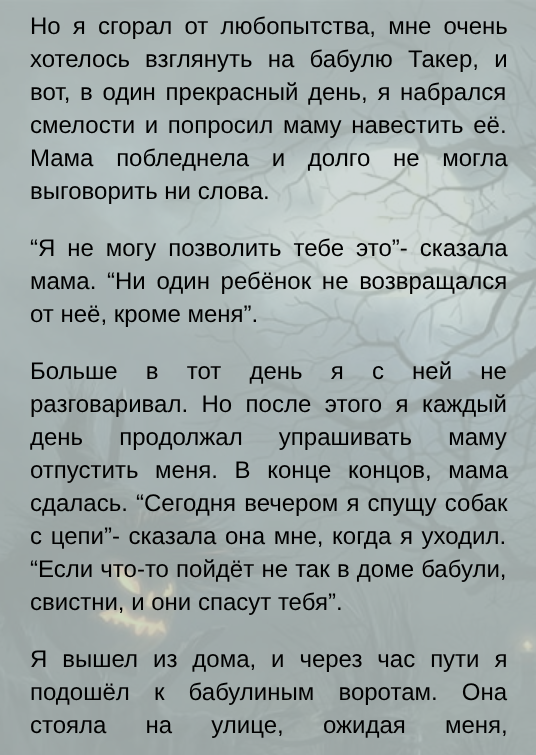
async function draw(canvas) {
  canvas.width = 536
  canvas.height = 755
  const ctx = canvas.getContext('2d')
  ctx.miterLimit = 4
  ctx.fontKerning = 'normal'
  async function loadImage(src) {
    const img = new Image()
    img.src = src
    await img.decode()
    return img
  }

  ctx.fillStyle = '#fff'
  ctx.fillRect(0, 0, 536, 755)
  ctx.drawImage(await loadImage('image0.png'), 0, 0, 536, 755)
  ctx.wordSpacing = '5.5px'
  ctx.font = '24px Liberation Sans'
  ctx.fillStyle = '#000'
  ctx.fillText('Но я сгорал от любопытства, мне очень', 30, 34)
  ctx.wordSpacing = '8.5px'
  ctx.fillText('хотелось взглянуть на бабулю Такер, и', 30, 67)
  ctx.wordSpacing = '3px'
  ctx.fillText('вот, в один прекрасный день, я набрался', 30, 100)
  ctx.fillText('смелости и попросил маму навестить её.', 30, 133)
  ctx.wordSpacing = '16px'
  ctx.fillText('Мама побледнела и долго не могла', 30, 166)
  ctx.wordSpacing = '0px'
  ctx.fillText('выговорить ни слова.', 30, 199)
  ctx.wordSpacing = '5.25px'
  ctx.fillText('“Я не могу позволить тебе это”- сказала', 30, 256)
  ctx.wordSpacing = '4px'
  ctx.fillText('мама. “Ни один ребёнок не возвращался', 30, 289)
  ctx.wordSpacing = '0px'
  ctx.fillText('от неё, кроме меня”.', 30, 322)
  ctx.wordSpacing = '21.5px'
  ctx.fillText('Больше в тот день я с ней не', 30, 379)
  ctx.wordSpacing = '6.75px'
  ctx.fillText('разговаривал. Но после этого я каждый', 30, 412)
  ctx.wordSpacing = '29.5px'
  ctx.fillText('день продолжал упрашивать маму', 30, 445)
  ctx.wordSpacing = '10px'
  ctx.fillText('отпустить меня. В конце концов, мама', 30, 478)
  ctx.wordSpacing = '1.5px'
  ctx.fillText('сдалась. “Сегодня вечером я спущу собак', 30, 511)
  ctx.wordSpacing = '2px'
  ctx.fillText('с цепи”- сказала она мне, когда я уходил.', 30, 544)
  ctx.wordSpacing = '0.5px'
  ctx.fillText('“Если что-то пойдёт не так в доме бабули,', 30, 577)
  ctx.wordSpacing = '0px'
  ctx.fillText('свистни, и они спасут тебя”.', 30, 610)
  ctx.wordSpacing = '8.25px'
  ctx.fillText('Я вышел из дома, и через час пути я', 30, 667)
  ctx.wordSpacing = '17.5px'
  ctx.fillText('подошёл к бабулиным воротам. Она', 30, 700)
  ctx.wordSpacing = '32.5px'
  ctx.fillText('стояла на улице, ожидая меня,', 30, 733)
}

draw(document.querySelector('canvas'))
